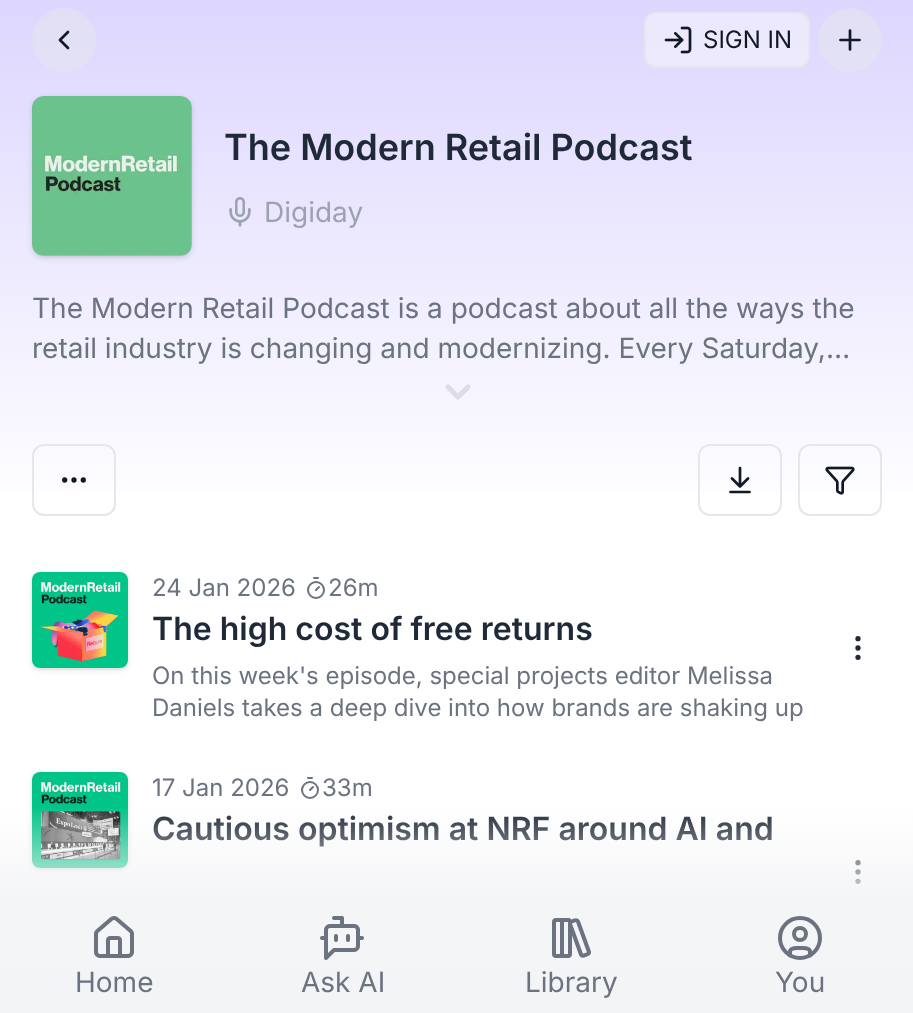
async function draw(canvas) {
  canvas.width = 913
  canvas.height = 1013
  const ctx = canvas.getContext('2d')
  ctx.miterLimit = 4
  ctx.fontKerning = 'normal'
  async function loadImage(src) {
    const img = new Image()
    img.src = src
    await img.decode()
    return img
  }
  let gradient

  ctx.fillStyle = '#fff'
  ctx.fillRect(0, 0, 913, 1013)
  gradient = ctx.createLinearGradient(457, 0, 457, 524)
  gradient.addColorStop(0, '#ddd6fe')
  gradient.addColorStop(1, '#fff')
  ctx.fillStyle = gradient
  ctx.fillRect(0, 0, 913, 492)
  ctx.fillStyle = '#e5e7eb80'
  ctx.beginPath()
  ctx.arc(64, 40, 32, 0, 2 * Math.PI)
  ctx.fill()
  ctx.beginPath()
  ctx.moveTo(68, 48)
  ctx.lineTo(60, 40)
  ctx.lineTo(68, 32)
  ctx.strokeStyle = '#111827'
  ctx.lineWidth = 2.7
  ctx.lineCap = 'round'
  ctx.lineJoin = 'round'
  ctx.stroke()
  ctx.fillStyle = '#f9fafb80'
  ctx.beginPath()
  ctx.roundRect(645, 13, 164, 54, 11)
  ctx.fill()
  ctx.strokeStyle = '#e5e7eb'
  ctx.lineWidth = 2
  ctx.lineJoin = 'miter'
  ctx.stroke()
  ctx.drawImage(await loadImage('image0.png'), 664, 26, 28, 28)
  ctx.font = '24px Inter'
  ctx.fillStyle = '#111827'
  ctx.fillText('SIGN IN', 703, 48)
  ctx.fillStyle = '#e5e7eb80'
  ctx.beginPath()
  ctx.arc(850, 40, 32, 0, 2 * Math.PI)
  ctx.fill()
  ctx.beginPath()
  ctx.moveTo(840.5, 40)
  ctx.lineTo(859.5, 40)
  ctx.moveTo(850, 30.5)
  ctx.lineTo(850, 49.5)
  ctx.strokeStyle = '#111827'
  ctx.lineWidth = 2.7
  ctx.lineJoin = 'round'
  ctx.stroke()
  ctx.fillStyle = '#0000001a'
  ctx.filter = 'blur(2px)'
  ctx.beginPath()
  ctx.roundRect(34, 100, 156, 156, 10)
  ctx.fill()
  ctx.filter = 'none'
  ctx.filter = 'blur(3px)'
  ctx.beginPath()
  ctx.roundRect(32, 98, 160, 160, 12)
  ctx.fill()
  ctx.filter = 'none'
  ctx.drawImage(await loadImage('image1.png'), 32, 96, 160, 160)
  ctx.font = '600 36px Inter'
  ctx.fillStyle = '#1f2937'
  ctx.fillText('The Modern Retail Podcast', 224, 160)
  ctx.drawImage(await loadImage('image2.png'), 229, 197, 22, 30)
  ctx.font = '28px Inter'
  ctx.fillStyle = '#9ca3af'
  ctx.fillText('Digiday', 264, 222)
  ctx.fillStyle = '#6b7280'
  ctx.fillText('The Modern Retail Podcast is a podcast about all the ways the', 32, 318)
  ctx.fillText('retail industry is changing and modernizing. Every Saturday,…', 32, 358)
  ctx.beginPath()
  ctx.moveTo(448, 387)
  ctx.lineTo(458, 397)
  ctx.lineTo(468, 387)
  ctx.strokeStyle = '#dedce6'
  ctx.lineWidth = 5
  ctx.stroke()
  ctx.beginPath()
  ctx.roundRect(33, 445, 82, 70, 11)
  ctx.strokeStyle = '#e5e7eb'
  ctx.lineWidth = 2
  ctx.lineJoin = 'miter'
  ctx.stroke()
  ctx.beginPath()
  ctx.arc(74, 480, 1.3, 0, 2 * Math.PI)
  ctx.strokeStyle = '#111827'
  ctx.lineWidth = 2.7
  ctx.stroke()
  ctx.beginPath()
  ctx.arc(83.3, 480, 1.3, 0, 2 * Math.PI)
  ctx.stroke()
  ctx.beginPath()
  ctx.arc(64.7, 480, 1.3, 0, 2 * Math.PI)
  ctx.stroke()
  ctx.beginPath()
  ctx.roundRect(699, 445, 82, 70, 11)
  ctx.strokeStyle = '#e5e7eb'
  ctx.lineWidth = 2
  ctx.stroke()
  ctx.beginPath()
  ctx.moveTo(740, 486.5)
  ctx.lineTo(740, 468)
  ctx.moveTo(732, 478.5)
  ctx.lineTo(740, 486.5)
  ctx.lineTo(748, 478.5)
  ctx.moveTo(749.5, 492)
  ctx.lineTo(730.5, 492)
  ctx.strokeStyle = '#111827'
  ctx.lineWidth = 2.7
  ctx.lineJoin = 'round'
  ctx.stroke()
  ctx.beginPath()
  ctx.roundRect(799, 445, 82, 70, 11)
  ctx.strokeStyle = '#e5e7eb'
  ctx.lineWidth = 2
  ctx.lineJoin = 'miter'
  ctx.stroke()
  ctx.drawImage(await loadImage('image3.png'), 825, 466, 30, 29)
  ctx.fillStyle = '#0000001a'
  ctx.filter = 'blur(2px)'
  ctx.beginPath()
  ctx.roundRect(34, 576, 92, 92, 6)
  ctx.fill()
  ctx.filter = 'none'
  ctx.filter = 'blur(3px)'
  ctx.beginPath()
  ctx.roundRect(32, 574, 96, 96, 8)
  ctx.fill()
  ctx.filter = 'none'
  ctx.fillStyle = '#f3f4f6'
  ctx.beginPath()
  ctx.roundRect(32, 572, 96, 96, 8)
  ctx.fill()
  ctx.drawImage(await loadImage('image4.png'), 32, 572, 96, 96)
  ctx.font = '24px Inter'
  ctx.fillStyle = '#6b7280'
  ctx.fillText('24 Jan 2026', 152, 596)
  ctx.beginPath()
  ctx.moveTo(314, 578)
  ctx.lineTo(318, 578)
  ctx.moveTo(316, 590)
  ctx.lineTo(319, 587)
  ctx.strokeStyle = '#6b7280'
  ctx.lineJoin = 'round'
  ctx.stroke()
  ctx.beginPath()
  ctx.arc(316, 590, 8, 0, 2 * Math.PI)
  ctx.stroke()
  ctx.fillText('26m', 328, 596)
  ctx.font = '600 32px Inter'
  ctx.fillStyle = '#1f2937'
  ctx.fillText('The high cost of free returns', 152, 640)
  ctx.font = '24px Inter'
  ctx.fillStyle = '#6b7280'
  ctx.fillText('On this week\'s episode, special projects editor Melissa', 152, 684)
  ctx.fillText('Daniels takes a deep dive into how brands are shaking up', 152, 716)
  ctx.beginPath()
  ctx.arc(858, 648, 1.3, 0, 2 * Math.PI)
  ctx.strokeStyle = '#1f2937'
  ctx.lineWidth = 2.7
  ctx.stroke()
  ctx.beginPath()
  ctx.arc(858, 638.7, 1.3, 0, 2 * Math.PI)
  ctx.stroke()
  ctx.beginPath()
  ctx.arc(858, 657.3, 1.3, 0, 2 * Math.PI)
  ctx.stroke()
  ctx.fillStyle = '#0000001a'
  ctx.filter = 'blur(2px)'
  ctx.beginPath()
  ctx.roundRect(34, 776, 92, 92, 6)
  ctx.fill()
  ctx.filter = 'none'
  ctx.filter = 'blur(3px)'
  ctx.beginPath()
  ctx.roundRect(32, 774, 96, 96, 8)
  ctx.fill()
  ctx.filter = 'none'
  ctx.fillStyle = '#f3f4f6'
  ctx.beginPath()
  ctx.roundRect(32, 772, 96, 96, 8)
  ctx.fill()
  ctx.drawImage(await loadImage('image5.png'), 32, 772, 96, 96)
  ctx.fillStyle = '#6b7280'
  ctx.fillText('17 Jan 2026', 152, 796)
  ctx.beginPath()
  ctx.moveTo(308, 778)
  ctx.lineTo(312, 778)
  ctx.moveTo(310, 790)
  ctx.lineTo(313, 787)
  ctx.strokeStyle = '#6b7280'
  ctx.lineWidth = 2
  ctx.stroke()
  ctx.beginPath()
  ctx.arc(310, 790, 8, 0, 2 * Math.PI)
  ctx.stroke()
  ctx.fillText('33m', 322, 796)
  ctx.font = '600 32px Inter'
  ctx.fillStyle = '#1f2937'
  ctx.fillText('Cautious optimism at NRF around AI and', 152, 840)
  ctx.beginPath()
  ctx.arc(858, 872, 1.3, 0, 2 * Math.PI)
  ctx.strokeStyle = '#1f2937'
  ctx.lineWidth = 2.7
  ctx.stroke()
  ctx.beginPath()
  ctx.arc(858, 862.7, 1.3, 0, 2 * Math.PI)
  ctx.stroke()
  ctx.beginPath()
  ctx.arc(858, 881.3, 1.3, 0, 2 * Math.PI)
  ctx.stroke()
  gradient = ctx.createLinearGradient(457, 806, 457, 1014)
  gradient.addColorStop(0, '#f3f4f600')
  gradient.addColorStop(0.46, '#f3f4f6e6')
  gradient.addColorStop(1, '#f3f4f6')
  ctx.fillStyle = gradient
  ctx.fillRect(0, 808, 913, 205)
  ctx.drawImage(await loadImage('image6.png'), 94, 916, 40, 42)
  ctx.font = '28px Inter'
  ctx.fillStyle = '#6b7280'
  ctx.fillText('Home', 75, 992)
  ctx.drawImage(await loadImage('image7.png'), 320, 916, 44, 44)
  ctx.fillText('Ask AI', 301, 992)
  ctx.beginPath()
  ctx.roundRect(554, 920, 16, 36, 2)
  ctx.strokeStyle = '#6b7280'
  ctx.lineWidth = 4
  ctx.lineJoin = 'miter'
  ctx.stroke()
  ctx.beginPath()
  ctx.moveTo(562, 920)
  ctx.lineTo(562, 956)
  ctx.moveTo(589, 952)
  ctx.bezierCurveTo(589.5, 954, 586.5, 954.5, 585.5, 955)
  ctx.bezierCurveTo(584, 955.5, 582, 956.5, 581, 954.5)
  ctx.lineTo(572, 929.5)
  ctx.bezierCurveTo(570.5, 924.5, 568, 923, 573, 921)
  ctx.bezierCurveTo(574.5, 920.5, 577, 919, 578, 921.5)
  ctx.closePath()
  ctx.lineJoin = 'round'
  ctx.stroke()
  ctx.fillText('Library', 525, 992)
  ctx.beginPath()
  ctx.arc(800, 938, 20, 0, 2 * Math.PI)
  ctx.stroke()
  ctx.beginPath()
  ctx.arc(800, 934, 6, 0, 2 * Math.PI)
  ctx.stroke()
  ctx.beginPath()
  ctx.moveTo(790, 955.5)
  ctx.lineTo(790, 951)
  ctx.bezierCurveTo(791, 947, 797, 948, 800, 948)
  ctx.bezierCurveTo(803, 948, 809, 947, 810, 951)
  ctx.lineTo(810, 955.5)
  ctx.stroke()
  ctx.fillText('You', 775, 992)
}

draw(document.querySelector('canvas'))
